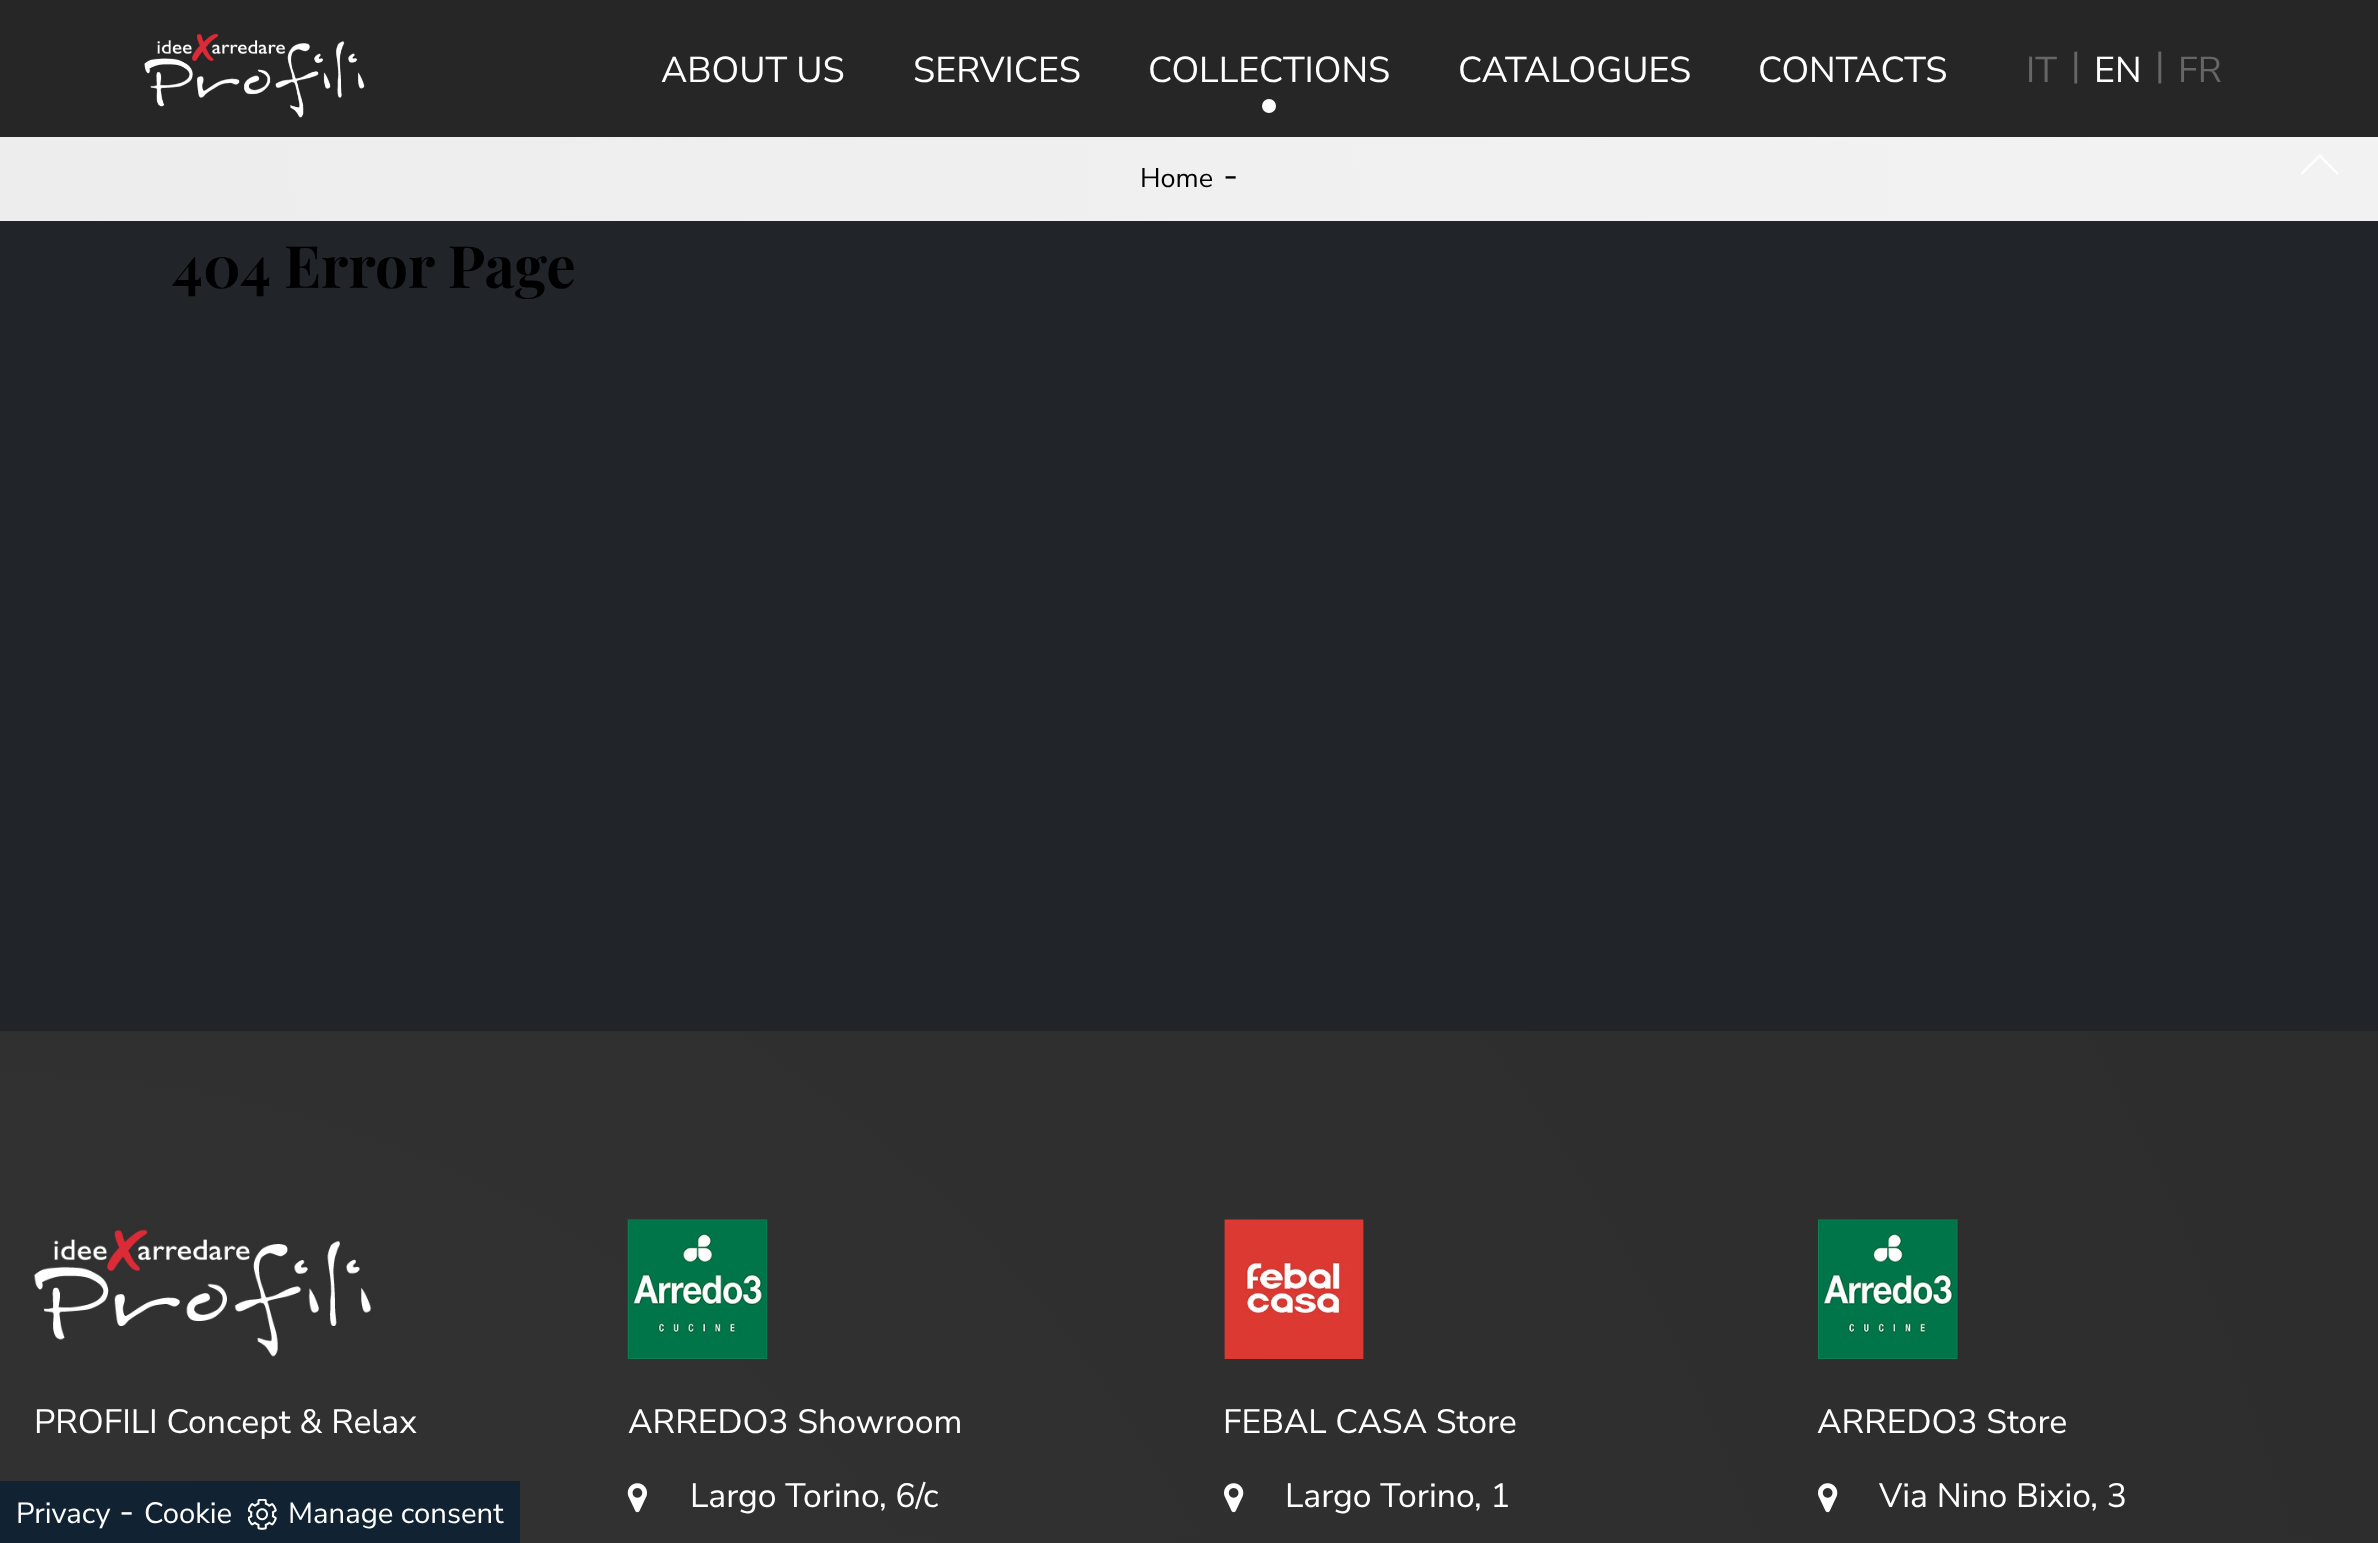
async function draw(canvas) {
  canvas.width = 2378
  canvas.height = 1543
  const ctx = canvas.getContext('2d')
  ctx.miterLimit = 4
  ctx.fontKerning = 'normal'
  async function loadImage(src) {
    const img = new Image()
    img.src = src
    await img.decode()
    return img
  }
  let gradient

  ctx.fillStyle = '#212529'
  ctx.fillRect(0, 0, 2378, 1543)
  ctx.fillStyle = '#262626'
  ctx.fillRect(0, 0, 2378, 137)
  ctx.drawImage(await loadImage('image0.png'), 144, 33, 221, 85)
  ctx.font = '36px Nunito Sans'
  ctx.fillStyle = '#fff'
  ctx.fillText('ABOUT US', 661, 82)
  ctx.fillText('SERVICES', 913, 82)
  ctx.fillText('COLLECTIONS', 1148, 82)
  ctx.beginPath()
  ctx.arc(1269, 106, 7, 0, 2 * Math.PI)
  ctx.fill()
  ctx.fillText('CATALOGUES', 1458, 82)
  ctx.fillText('CONTACTS', 1758, 82)
  ctx.fillStyle = '#666'
  ctx.fillText('IT', 2026, 82)
  ctx.fillText('|', 2071, 77)
  ctx.fillStyle = '#fff'
  ctx.fillText('EN', 2094, 82)
  ctx.fillStyle = '#666'
  ctx.fillText('|', 2155, 77)
  ctx.fillText('FR', 2178, 82)
  gradient = ctx.createRadialGradient(0, 221, 0, 0, 221, 2126)
  gradient.addColorStop(0, '#ededed')
  gradient.addColorStop(1, '#f2f2f2')
  ctx.fillStyle = gradient
  ctx.fillRect(0, 137, 2378, 84)
  ctx.fillStyle = '#fff'
  ctx.beginPath()
  ctx.moveTo(2320, 154)
  ctx.lineTo(2339, 173.5)
  ctx.lineTo(2337.5, 175)
  ctx.lineTo(2318, 155.5)
  ctx.closePath()
  ctx.fill()
  ctx.beginPath()
  ctx.moveTo(2320, 154)
  ctx.lineTo(2321.5, 155.5)
  ctx.lineTo(2302, 175)
  ctx.lineTo(2300.5, 173)
  ctx.closePath()
  ctx.fill()
  ctx.font = '27px Nunito Sans'
  ctx.fillStyle = '#000'
  ctx.fillText('Home', 1140, 187)
  ctx.font = '36px Nunito Sans'
  ctx.fillText('-', 1223, 187)
  ctx.font = 'bold 58.5px Playfair Display'
  ctx.fillText('404 Error Page', 172, 288)
  gradient = ctx.createRadialGradient(0, 2174, 0, 0, 2174, 3271)
  gradient.addColorStop(0, '#333')
  gradient.addColorStop(1, '#2b2b2b')
  ctx.fillStyle = gradient
  ctx.fillRect(0, 1031, 2378, 512)
  ctx.drawImage(await loadImage('image1.png'), 33, 1229, 339, 128)
  ctx.font = '33.75px Nunito Sans'
  ctx.fillStyle = '#fff'
  ctx.fillText('PROFILI Concept & Relax', 34, 1433)
  ctx.drawImage(await loadImage('image2.png'), 627, 1219, 141, 140)
  ctx.fillText('ARREDO3 Showroom', 628, 1433)
  ctx.drawImage(await loadImage('image3.png'), 627, 1483, 20, 30)
  ctx.fillText('Largo Torino, 6/c', 690, 1507)
  ctx.drawImage(await loadImage('image4.png'), 1224, 1219, 140, 140)
  ctx.fillText('FEBAL CASA Store', 1223, 1433)
  ctx.drawImage(await loadImage('image5.png'), 1224, 1483, 20, 30)
  ctx.fillText('Largo Torino, 1', 1285, 1507)
  ctx.drawImage(await loadImage('image6.png'), 1818, 1219, 140, 140)
  ctx.fillText('ARREDO3 Store', 1817, 1433)
  ctx.drawImage(await loadImage('image7.png'), 1818, 1483, 20, 30)
  ctx.fillText('Via Nino Bixio, 3', 1879, 1507)
  ctx.fillStyle = '#123'
  ctx.fillRect(0, 1481, 520, 62)
  ctx.font = '29.25px Nunito Sans'
  ctx.fillStyle = '#fff'
  ctx.fillText('Privacy', 16, 1523)
  ctx.font = '36px Nunito Sans'
  ctx.fillText('-', 119, 1523)
  ctx.font = '29.25px Nunito Sans'
  ctx.fillText('Cookie', 144, 1523)
  ctx.drawImage(await loadImage('image8.png'), 248, 1499, 29, 31)
  ctx.fillText('Manage consent', 288, 1523)
}

draw(document.querySelector('canvas'))
